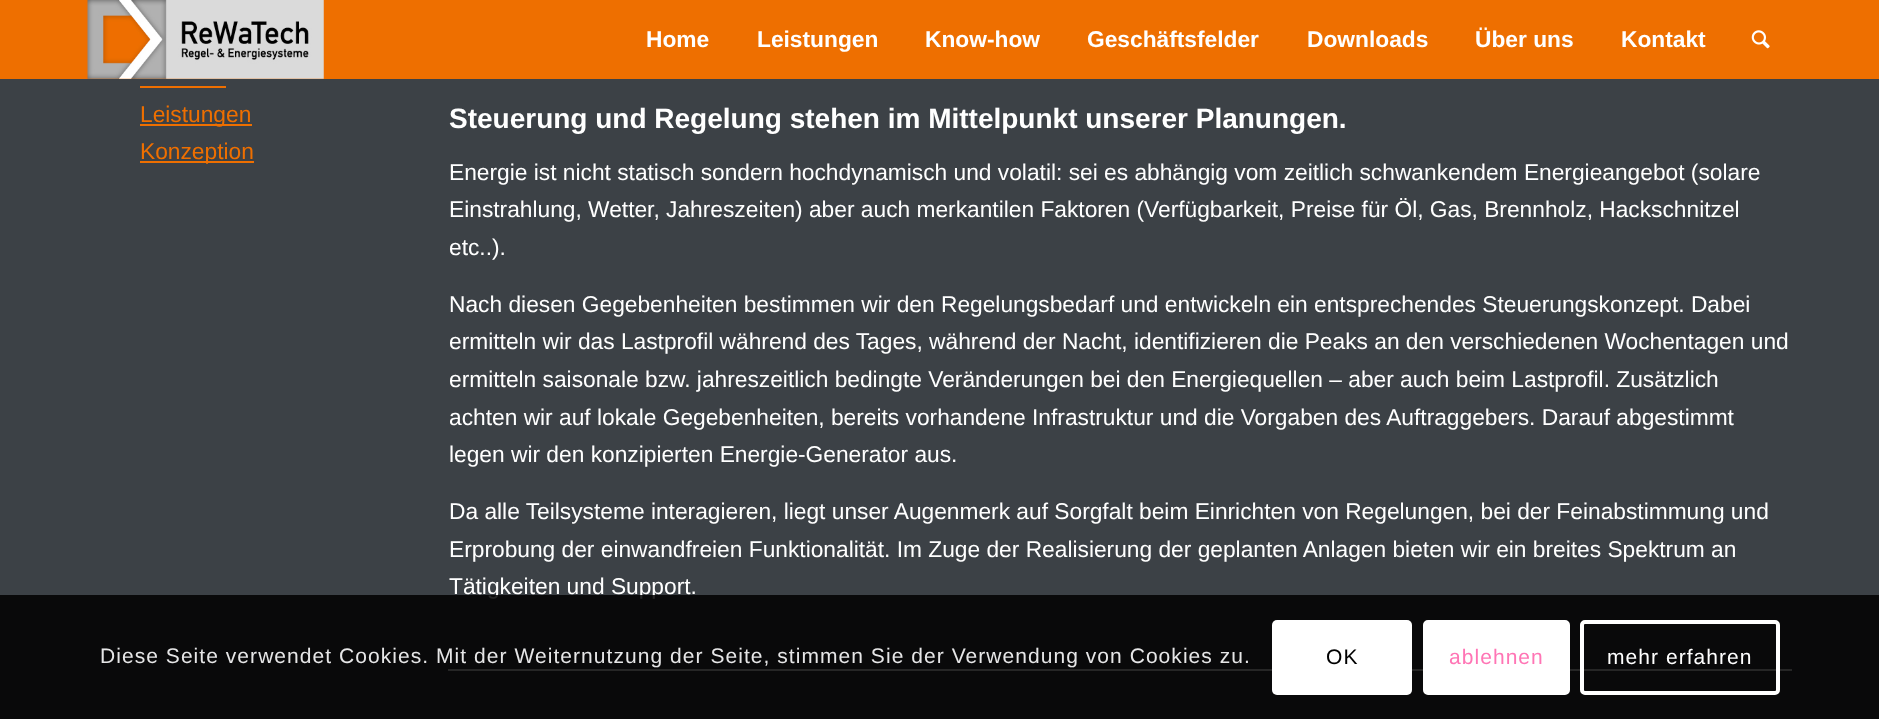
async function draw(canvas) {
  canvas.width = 1879
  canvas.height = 719
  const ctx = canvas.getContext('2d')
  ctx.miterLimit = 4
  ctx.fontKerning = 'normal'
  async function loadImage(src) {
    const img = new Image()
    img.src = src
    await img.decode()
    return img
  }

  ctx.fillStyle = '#3c4146'
  ctx.fillRect(0, 0, 1879, 719)
  ctx.fillStyle = '#ee6f00'
  ctx.fillRect(0, 0, 1879, 79)
  ctx.drawImage(await loadImage('image0.png'), 87, 0, 237, 79)
  ctx.font = 'bold 22.75px Liberation Sans'
  ctx.fillStyle = '#fff'
  ctx.fillText('Home', 646, 47)
  ctx.fillText('Leistungen', 757, 47)
  ctx.fillText('Know-how', 925, 47)
  ctx.fillText('Geschäftsfelder', 1087, 47)
  ctx.fillText('Downloads', 1307, 47)
  ctx.fillText('Über uns', 1475, 47)
  ctx.fillText('Kontakt', 1621, 47)
  ctx.drawImage(await loadImage('image1.png'), 1751, 30, 19, 19)
  ctx.fillStyle = '#ee6f00'
  ctx.fillRect(140, 86, 86, 2)
  ctx.fillRect(140, 124, 112, 2)
  ctx.font = '22.75px Liberation Sans'
  ctx.fillText('Leistungen', 140, 122)
  ctx.fillRect(140, 161, 114, 2)
  ctx.fillText('Konzeption', 140, 159)
  ctx.font = 'bold 28px Liberation Sans'
  ctx.fillStyle = '#fff'
  ctx.fillText('Steuerung und Regelung stehen im Mittelpunkt unserer Planungen.', 449, 128)
  ctx.font = '22.75px Liberation Sans'
  ctx.fillText('Energie ist nicht statisch sondern hochdynamisch und volatil: sei es abhängig vom zeitlich schwankendem Energieangebot (solare', 449, 180)
  ctx.fillText('Einstrahlung, Wetter, Jahreszeiten) aber auch merkantilen Faktoren (Verfügbarkeit, Preise für Öl, Gas, Brennholz, Hackschnitzel', 449, 217)
  ctx.fillText('etc..).', 449, 255)
  ctx.fillText('Nach diesen Gegebenheiten bestimmen wir den Regelungsbedarf und entwickeln ein entsprechendes Steuerungskonzept. Dabei', 449, 312)
  ctx.fillText('ermitteln wir das Lastprofil während des Tages, während der Nacht, identifizieren die Peaks an den verschiedenen Wochentagen und', 449, 349)
  ctx.fillText('ermitteln saisonale bzw. jahreszeitlich bedingte Veränderungen bei den Energiequellen – aber auch beim Lastprofil. Zusätzlich', 449, 387)
  ctx.fillText('achten wir auf lokale Gegebenheiten, bereits vorhandene Infrastruktur und die Vorgaben des Auftraggebers. Darauf abgestimmt', 449, 425)
  ctx.fillText('legen wir den konzipierten Energie-Generator aus.', 449, 462)
  ctx.fillText('Da alle Teilsysteme interagieren, liegt unser Augenmerk auf Sorgfalt beim Einrichten von Regelungen, bei der Feinabstimmung und', 449, 519)
  ctx.fillText('Erprobung der einwandfreien Funktionalität. Im Zuge der Realisierung der geplanten Anlagen bieten wir ein breites Spektrum an', 449, 557)
  ctx.fillText('Tätigkeiten und Support.', 449, 594)
  ctx.fillRect(448, 669, 1344, 2)
  ctx.fillStyle = '#000000d9'
  ctx.fillRect(0, 595, 1879, 124)
  ctx.letterSpacing = '1.05px'
  ctx.font = '21px Liberation Sans'
  ctx.fillStyle = '#e6e6e7'
  ctx.fillText('Diese Seite verwendet Cookies. Mit der Weiternutzung der Seite, stimmen Sie der Verwendung von Cookies zu.', 100, 663)
  ctx.fillStyle = '#fff'
  ctx.beginPath()
  ctx.roundRect(1272, 620, 140, 75, 5)
  ctx.fill()
  ctx.fillStyle = '#000'
  ctx.fillText('OK', 1326, 664)
  ctx.fillStyle = '#fff'
  ctx.beginPath()
  ctx.roundRect(1425, 622, 143, 71, 3)
  ctx.fill()
  ctx.strokeStyle = '#fff'
  ctx.lineWidth = 4
  ctx.stroke()
  ctx.fillStyle = '#ff75b5'
  ctx.fillText('ablehnen', 1449, 664)
  ctx.beginPath()
  ctx.roundRect(1582, 622, 196, 71, 3)
  ctx.stroke()
  ctx.fillStyle = '#fff'
  ctx.fillText('mehr erfahren', 1607, 664)
}

draw(document.querySelector('canvas'))
